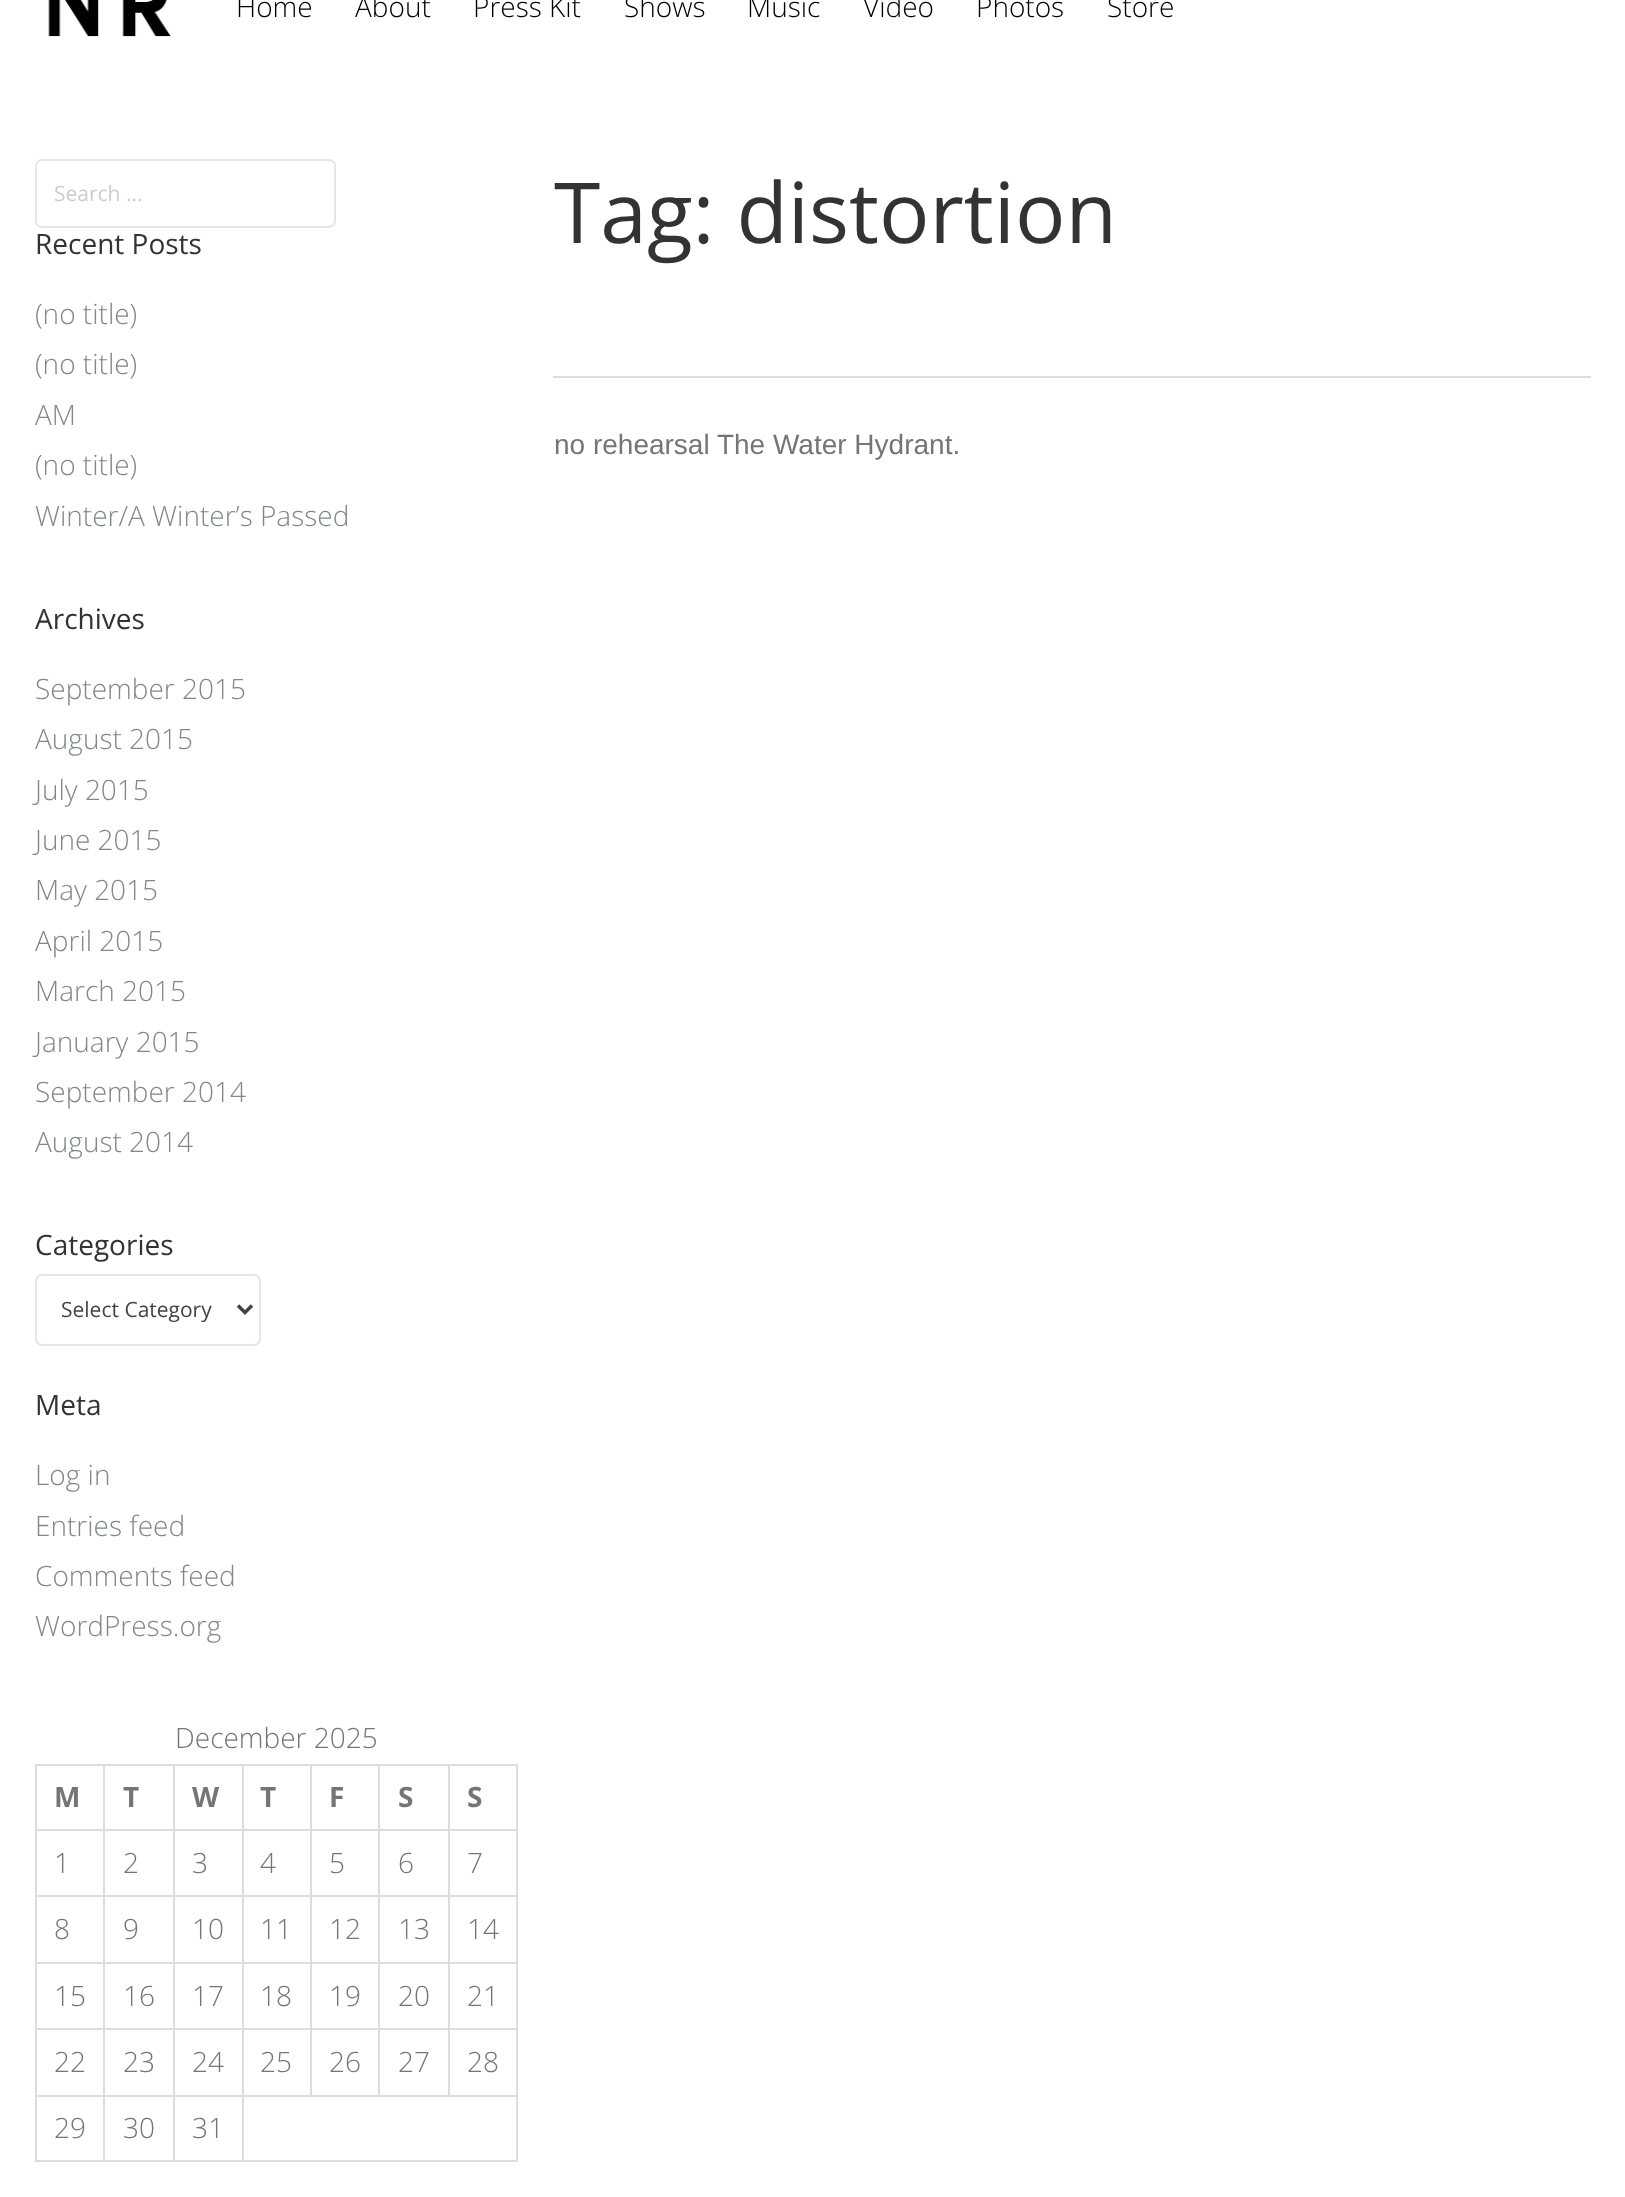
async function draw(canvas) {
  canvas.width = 1625
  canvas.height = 2197
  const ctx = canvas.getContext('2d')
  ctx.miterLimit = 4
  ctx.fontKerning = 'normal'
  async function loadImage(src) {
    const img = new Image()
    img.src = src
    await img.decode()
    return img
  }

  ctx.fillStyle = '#fff'
  ctx.fillRect(0, 0, 1625, 2197)
  ctx.drawImage(await loadImage('image0.png'), 48, 0, 123, 37)
  ctx.font = '300 28px Open Sans'
  ctx.fillStyle = '#000'
  ctx.fillText('Home', 236, 17)
  ctx.fillText('About', 355, 17)
  ctx.fillText('Press Kit', 473, 17)
  ctx.fillText('Shows', 624, 17)
  ctx.fillText('Music', 747, 17)
  ctx.fillText('Video', 863, 17)
  ctx.fillText('Photos', 976, 17)
  ctx.fillText('Store', 1107, 17)
  ctx.beginPath()
  ctx.roundRect(36, 160, 299, 67, 6)
  ctx.strokeStyle = '#e6e6e6'
  ctx.lineWidth = 2
  ctx.stroke()
  ctx.font = '21px Open Sans'
  ctx.fillStyle = '#ccc'
  ctx.fillText('Search …', 54, 201)
  ctx.font = '28px Open Sans'
  ctx.fillStyle = '#333'
  ctx.fillText('Recent Posts', 35, 254)
  ctx.font = '300 28px Open Sans'
  ctx.fillStyle = '#82888a'
  ctx.fillText('(no title)', 35, 324)
  ctx.fillText('(no title)', 35, 374)
  ctx.fillText('AM', 35, 425)
  ctx.fillText('(no title)', 35, 475)
  ctx.fillText('Winter/A Winter’s Passed', 35, 526)
  ctx.font = '28px Open Sans'
  ctx.fillStyle = '#333'
  ctx.fillText('Archives', 35, 629)
  ctx.font = '300 28px Open Sans'
  ctx.fillStyle = '#82888a'
  ctx.fillText('September 2015', 35, 699)
  ctx.fillText('August 2015', 35, 749)
  ctx.fillText('July 2015', 35, 800)
  ctx.fillText('June 2015', 35, 850)
  ctx.fillText('May 2015', 35, 900)
  ctx.fillText('April 2015', 35, 951)
  ctx.fillText('March 2015', 35, 1001)
  ctx.fillText('January 2015', 35, 1052)
  ctx.fillText('September 2014', 35, 1102)
  ctx.fillText('August 2014', 35, 1152)
  ctx.font = '28px Open Sans'
  ctx.fillStyle = '#333'
  ctx.fillText('Categories', 35, 1255)
  ctx.beginPath()
  ctx.roundRect(36, 1275, 224, 70, 6)
  ctx.stroke()
  ctx.beginPath()
  ctx.moveTo(238, 1305.5)
  ctx.lineTo(245, 1312.5)
  ctx.lineTo(252, 1305.5)
  ctx.strokeStyle = '#444'
  ctx.lineWidth = 3.5
  ctx.stroke()
  ctx.font = '21px Open Sans'
  ctx.fillStyle = '#444'
  ctx.fillText('Select Category', 61, 1317)
  ctx.font = '28px Open Sans'
  ctx.fillStyle = '#333'
  ctx.fillText('Meta', 35, 1415)
  ctx.font = '300 28px Open Sans'
  ctx.fillStyle = '#82888a'
  ctx.fillText('Log in', 35, 1485)
  ctx.fillText('Entries feed', 35, 1536)
  ctx.fillText('Comments feed', 35, 1586)
  ctx.fillText('WordPress.org', 35, 1636)
  ctx.fillStyle = '#757575'
  ctx.fillText('December 2025', 175, 1748)
  ctx.fillStyle = '#ddd'
  ctx.fillRect(448, 1764, 70, 2)
  ctx.fillRect(448, 1829, 70, 2)
  ctx.fillRect(448, 1895, 70, 2)
  ctx.fillRect(448, 1962, 70, 2)
  ctx.fillRect(448, 2028, 70, 2)
  ctx.fillRect(242, 2095, 276, 2)
  ctx.fillRect(448, 2028, 2, 69)
  ctx.fillRect(378, 2028, 72, 2)
  ctx.fillRect(448, 1962, 2, 68)
  ctx.fillRect(378, 1962, 72, 2)
  ctx.fillRect(448, 1895, 2, 69)
  ctx.fillRect(378, 1895, 72, 2)
  ctx.fillRect(448, 1829, 2, 68)
  ctx.fillRect(378, 1829, 72, 2)
  ctx.fillRect(448, 1764, 2, 67)
  ctx.fillRect(378, 1764, 72, 2)
  ctx.fillRect(378, 2028, 2, 69)
  ctx.fillRect(310, 2028, 70, 2)
  ctx.fillRect(378, 1962, 2, 68)
  ctx.fillRect(310, 1962, 70, 2)
  ctx.fillRect(378, 1895, 2, 69)
  ctx.fillRect(310, 1895, 70, 2)
  ctx.fillRect(378, 1829, 2, 68)
  ctx.fillRect(310, 1829, 70, 2)
  ctx.fillRect(378, 1764, 2, 67)
  ctx.fillRect(310, 1764, 70, 2)
  ctx.fillRect(310, 2028, 2, 69)
  ctx.fillRect(242, 2028, 70, 2)
  ctx.fillRect(310, 1962, 2, 68)
  ctx.fillRect(242, 1962, 70, 2)
  ctx.fillRect(310, 1895, 2, 69)
  ctx.fillRect(242, 1895, 70, 2)
  ctx.fillRect(310, 1829, 2, 68)
  ctx.fillRect(242, 1829, 70, 2)
  ctx.fillRect(310, 1764, 2, 67)
  ctx.fillRect(242, 1764, 70, 2)
  ctx.fillRect(516, 2095, 2, 66)
  ctx.fillRect(242, 2160, 276, 2)
  ctx.fillRect(242, 2095, 2, 66)
  ctx.fillRect(173, 2095, 70, 2)
  ctx.fillRect(242, 2028, 2, 69)
  ctx.fillRect(173, 2028, 70, 2)
  ctx.fillRect(242, 1962, 2, 68)
  ctx.fillRect(173, 1962, 70, 2)
  ctx.fillRect(242, 1895, 2, 69)
  ctx.fillRect(173, 1895, 70, 2)
  ctx.fillRect(242, 1829, 2, 68)
  ctx.fillRect(173, 1829, 70, 2)
  ctx.fillRect(242, 1764, 2, 67)
  ctx.fillRect(173, 1764, 70, 2)
  ctx.fillRect(173, 2160, 70, 2)
  ctx.fillRect(173, 2095, 2, 66)
  ctx.fillRect(103, 2095, 72, 2)
  ctx.fillRect(173, 2028, 2, 69)
  ctx.fillRect(103, 2028, 72, 2)
  ctx.fillRect(173, 1962, 2, 68)
  ctx.fillRect(103, 1962, 72, 2)
  ctx.fillRect(173, 1895, 2, 69)
  ctx.fillRect(103, 1895, 72, 2)
  ctx.fillRect(173, 1829, 2, 68)
  ctx.fillRect(103, 1829, 72, 2)
  ctx.fillRect(173, 1764, 2, 67)
  ctx.fillRect(103, 1764, 72, 2)
  ctx.fillRect(103, 2160, 72, 2)
  ctx.fillRect(103, 2095, 2, 66)
  ctx.fillRect(35, 2095, 70, 2)
  ctx.fillRect(103, 2028, 2, 69)
  ctx.fillRect(35, 2028, 70, 2)
  ctx.fillRect(103, 1962, 2, 68)
  ctx.fillRect(35, 1962, 70, 2)
  ctx.fillRect(103, 1895, 2, 69)
  ctx.fillRect(35, 1895, 70, 2)
  ctx.fillRect(103, 1829, 2, 68)
  ctx.fillRect(35, 1829, 70, 2)
  ctx.fillRect(103, 1764, 2, 67)
  ctx.fillRect(35, 1764, 70, 2)
  ctx.fillRect(35, 2160, 70, 2)
  ctx.fillRect(35, 2095, 2, 66)
  ctx.fillRect(35, 2028, 2, 69)
  ctx.fillRect(35, 1962, 2, 68)
  ctx.fillRect(35, 1895, 2, 69)
  ctx.fillRect(35, 1829, 2, 68)
  ctx.fillRect(35, 1764, 2, 67)
  ctx.font = 'bold 28px Open Sans'
  ctx.fillStyle = '#757575'
  ctx.fillText('M', 54, 1807)
  ctx.fillText('T', 123, 1807)
  ctx.fillText('W', 192, 1807)
  ctx.fillText('T', 260, 1807)
  ctx.fillText('F', 329, 1807)
  ctx.fillText('S', 398, 1807)
  ctx.fillStyle = '#ddd'
  ctx.fillRect(516, 2028, 2, 69)
  ctx.fillRect(516, 1962, 2, 68)
  ctx.fillRect(516, 1895, 2, 69)
  ctx.fillRect(516, 1829, 2, 68)
  ctx.fillRect(516, 1764, 2, 67)
  ctx.fillStyle = '#757575'
  ctx.fillText('S', 467, 1807)
  ctx.font = '300 28px Open Sans'
  ctx.fillText('1', 54, 1873)
  ctx.fillText('2', 123, 1873)
  ctx.fillText('3', 192, 1873)
  ctx.fillText('4', 260, 1873)
  ctx.fillText('5', 329, 1873)
  ctx.fillText('6', 398, 1873)
  ctx.fillText('7', 467, 1873)
  ctx.fillText('8', 54, 1939)
  ctx.fillText('9', 123, 1939)
  ctx.fillText('10', 192, 1939)
  ctx.fillText('11', 260, 1939)
  ctx.fillText('12', 329, 1939)
  ctx.fillText('13', 398, 1939)
  ctx.fillText('14', 467, 1939)
  ctx.fillText('15', 54, 2006)
  ctx.fillText('16', 123, 2006)
  ctx.fillText('17', 192, 2006)
  ctx.fillText('18', 260, 2006)
  ctx.fillText('19', 329, 2006)
  ctx.fillText('20', 398, 2006)
  ctx.fillText('21', 467, 2006)
  ctx.fillText('22', 54, 2072)
  ctx.fillText('23', 123, 2072)
  ctx.fillText('24', 192, 2072)
  ctx.fillText('25', 260, 2072)
  ctx.fillText('26', 329, 2072)
  ctx.fillText('27', 398, 2072)
  ctx.fillText('28', 467, 2072)
  ctx.fillText('29', 54, 2138)
  ctx.fillText('30', 123, 2138)
  ctx.fillText('31', 192, 2138)
  ctx.font = '84px Open Sans'
  ctx.fillStyle = '#333'
  ctx.fillText('Tag: distortion', 554, 243)
  ctx.fillStyle = '#ddd'
  ctx.fillRect(553, 376, 1038, 2)
  ctx.font = '28px Liberation Sans'
  ctx.fillStyle = '#757575'
  ctx.fillText('no rehearsal The Water Hydrant.', 554, 454)
}

draw(document.querySelector('canvas'))
